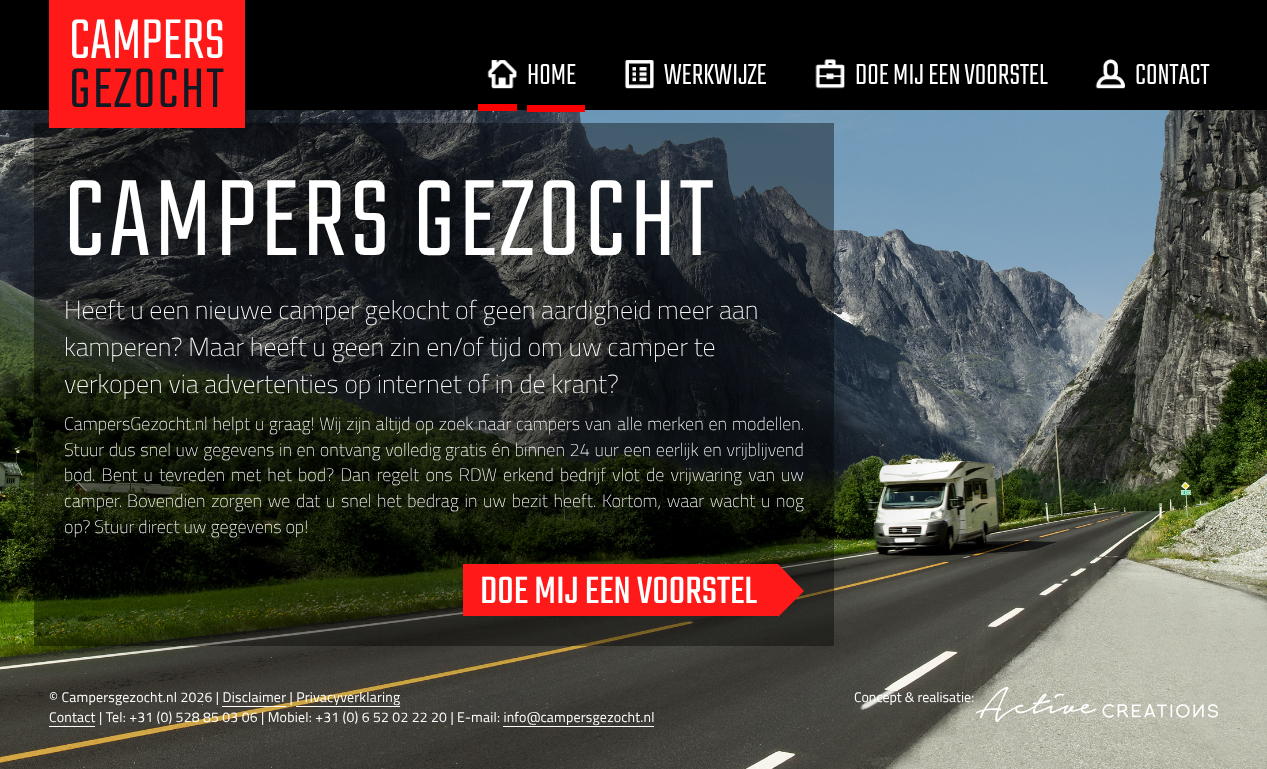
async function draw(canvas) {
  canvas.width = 1267
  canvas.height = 769
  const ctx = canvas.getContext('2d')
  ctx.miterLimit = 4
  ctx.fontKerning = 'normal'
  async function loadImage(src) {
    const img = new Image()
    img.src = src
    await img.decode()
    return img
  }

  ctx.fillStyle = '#fff'
  ctx.fillRect(0, 0, 1267, 769)
  ctx.drawImage(await loadImage('image0.png'), 0, 110, 1267, 659)
  ctx.fillStyle = '#000'
  ctx.fillRect(0, 0, 1267, 110)
  ctx.fillStyle = '#00000066'
  ctx.fillRect(34, 123, 800, 523)
  ctx.fillStyle = '#ff1919'
  ctx.fillRect(49, 0, 196, 128)
  ctx.font = '300 62px Teko'
  ctx.fillStyle = '#fff'
  ctx.fillText('CAMPERS', 69, 58)
  ctx.letterSpacing = '2px'
  ctx.fillStyle = '#121922'
  ctx.fillText('GEZOCHT', 69, 107)
  ctx.fillStyle = '#f00'
  ctx.fillRect(478, 104, 39, 7)
  ctx.fillRect(527, 105, 58, 7)
  ctx.drawImage(await loadImage('image1.png'), 487, 60, 30, 29)
  ctx.letterSpacing = '0px'
  ctx.font = '300 32px Teko'
  ctx.fillStyle = '#fff'
  ctx.fillText('HOME', 527, 84)
  ctx.drawImage(await loadImage('image2.png'), 624, 60, 30, 29)
  ctx.fillText('WERKWIJZE', 664, 84)
  ctx.drawImage(await loadImage('image3.png'), 815, 59, 30, 30)
  ctx.fillText('DOE MIJ EEN VOORSTEL', 855, 84)
  ctx.drawImage(await loadImage('image4.png'), 1095, 59, 30, 30)
  ctx.fillText('CONTACT', 1135, 84)
  ctx.letterSpacing = '4px'
  ctx.font = '300 120px Teko'
  ctx.fillText('CAMPERS GEZOCHT', 64, 255)
  ctx.letterSpacing = '0px'
  ctx.font = '100 26px Titillium Web'
  ctx.fillText('Heeft u een nieuwe camper gekocht of geen aardigheid meer aan', 64, 319)
  ctx.fillText('kamperen? Maar heeft u geen zin en/of tijd om uw camper te', 64, 356)
  ctx.fillText('verkopen via advertenties op internet of in de krant?', 64, 393)
  ctx.wordSpacing = '0.75px'
  ctx.font = '100 18px Titillium Web'
  ctx.fillText('CampersGezocht.nl helpt u graag! Wij zijn altijd op zoek naar campers van', 64, 430)
  ctx.wordSpacing = '1px'
  ctx.fillText('alle merken en modellen.', 617, 430)
  ctx.wordSpacing = '0.75px'
  ctx.fillText('Stuur dus snel uw gegevens in en ontvang volledig', 64, 456)
  ctx.fillText('gratis én binnen 24 uur een eerlijk en vrijblijvend', 445, 456)
  ctx.wordSpacing = '2.25px'
  ctx.fillText('bod. Bent u tevreden', 64, 481)
  ctx.fillText('met het bod? Dan regelt ons RDW erkend bedrijf vlot de vrijwaring van uw', 231, 481)
  ctx.wordSpacing = '0px'
  ctx.fillText('camper.', 64, 507)
  ctx.wordSpacing = '1.75px'
  ctx.fillText('Bovendien zorgen we dat u snel het bedrag in uw bezit heeft. Kortom, waar wacht u nog', 127, 507)
  ctx.wordSpacing = '0px'
  ctx.fillText('op? Stuur direct uw gegevens op!', 64, 533)
  ctx.fillStyle = '#ff1919'
  ctx.fillRect(463, 564, 315, 52)
  ctx.font = '42px Teko'
  ctx.fillStyle = '#fff'
  ctx.fillText('DOE MIJ EEN VOORSTEL', 480, 603)
  ctx.fillStyle = '#ff1919'
  ctx.beginPath()
  ctx.moveTo(778, 617)
  ctx.lineTo(778, 564)
  ctx.lineTo(804, 591)
  ctx.closePath()
  ctx.fill()
  ctx.letterSpacing = '0.2px'
  ctx.font = '14px Titillium Web'
  ctx.fillStyle = '#fff'
  ctx.fillText('© Campersgezocht.nl 2026 | Disclaimer | Privacyverklaring', 49, 702)
  ctx.fillRect(222, 706, 64, 1)
  ctx.fillRect(296, 706, 104, 1)
  ctx.fillText('Contact | Tel: +31 (0) 528 85 03 06 | Mobiel: +31 (0) 6 52 02 22 20 | E-mail: info@campersgezocht.nl', 49, 722)
  ctx.fillRect(49, 726, 46, 1)
  ctx.fillRect(503, 726, 151, 1)
  ctx.letterSpacing = '0px'
  ctx.fillText('Concept & realisatie:', 854, 702)
  ctx.drawImage(await loadImage('image5.png'), 976, 687, 242, 35)
}

draw(document.querySelector('canvas'))
